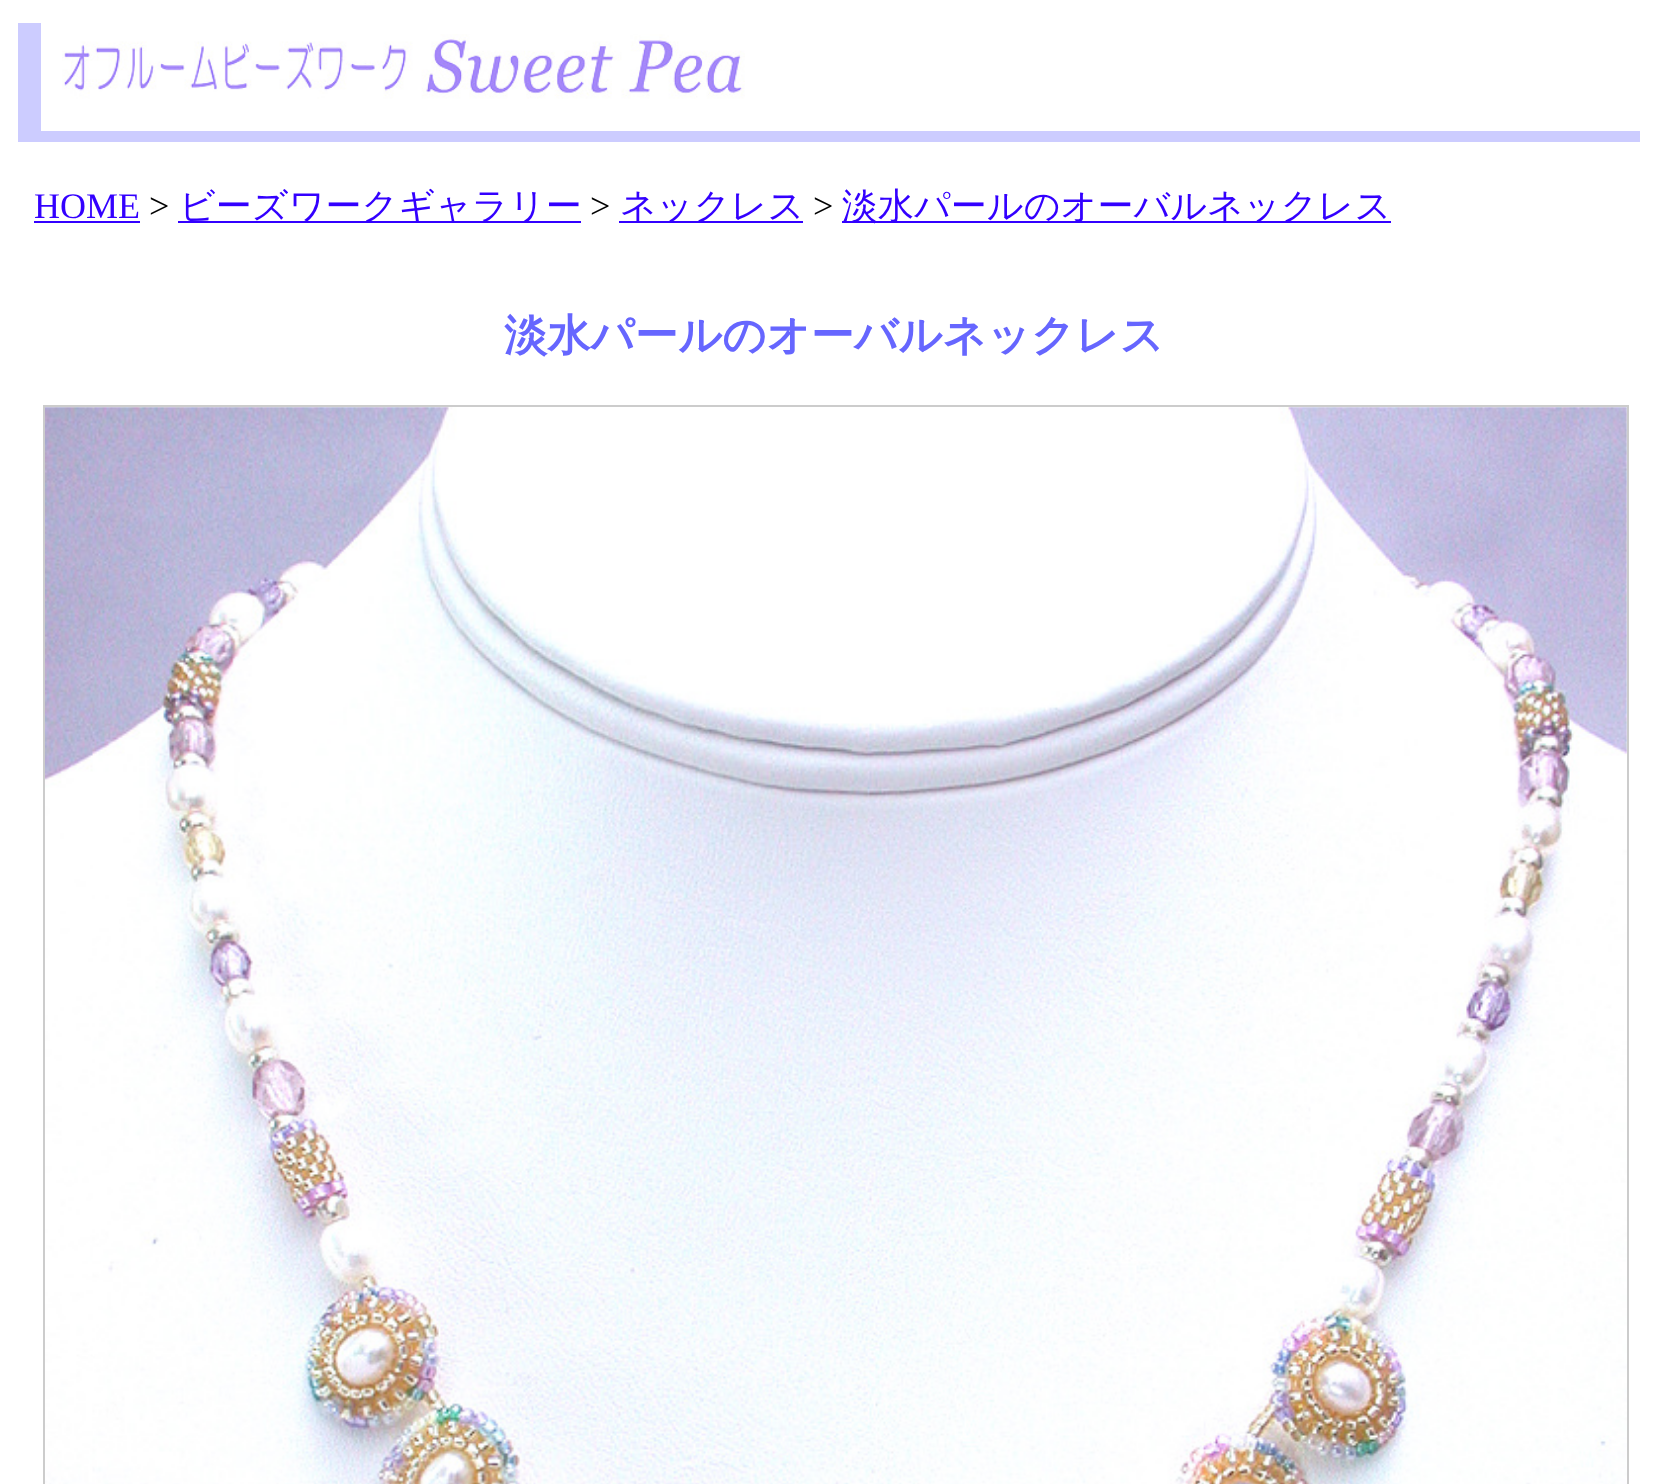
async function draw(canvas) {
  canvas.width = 1666
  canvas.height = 1484
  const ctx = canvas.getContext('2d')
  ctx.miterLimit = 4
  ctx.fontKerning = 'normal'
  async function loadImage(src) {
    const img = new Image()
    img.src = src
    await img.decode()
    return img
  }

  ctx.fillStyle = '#fff'
  ctx.fillRect(0, 0, 1666, 1484)
  ctx.fillStyle = '#ccf'
  ctx.fillRect(41, 131, 1599, 11)
  ctx.fillRect(18, 23, 23, 119)
  ctx.drawImage(await loadImage('image0.png'), 62, 34, 683, 65)
  ctx.font = '36px Liberation Serif'
  ctx.fillStyle = '#30f'
  ctx.fillText('HOME', 34, 218)
  ctx.fillRect(34, 221, 106, 2)
  ctx.fillStyle = '#000'
  ctx.fillText('>', 149, 218)
  ctx.fillStyle = '#30f'
  ctx.fillRect(178, 221, 403, 2)
  ctx.font = '500 36px WenQuanYi Zen Hei'
  ctx.fillText('ビーズワークギャラリー', 179, 218)
  ctx.font = '36px Liberation Serif'
  ctx.fillStyle = '#000'
  ctx.fillText('>', 590, 218)
  ctx.fillStyle = '#30f'
  ctx.fillRect(619, 221, 184, 2)
  ctx.font = '500 36px WenQuanYi Zen Hei'
  ctx.fillText('ネックレス', 620, 218)
  ctx.font = '36px Liberation Serif'
  ctx.fillStyle = '#000'
  ctx.fillText('>', 813, 218)
  ctx.fillStyle = '#30f'
  ctx.fillRect(842, 221, 549, 2)
  ctx.font = '500 36px WenQuanYi Zen Hei'
  ctx.fillText('淡水パールのオーバルネックレス', 842, 218)
  ctx.font = 'bold 43.25px WenQuanYi Zen Hei'
  ctx.fillStyle = '#66f'
  ctx.fillText('淡水パールのオーバルネックレス', 504, 350)
  ctx.strokeStyle = '#ccc'
  ctx.lineWidth = 2
  ctx.strokeRect(44, 406, 1584, 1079)
  ctx.drawImage(await loadImage('image1.png'), 45, 407, 1582, 1077)
}

draw(document.querySelector('canvas'))
